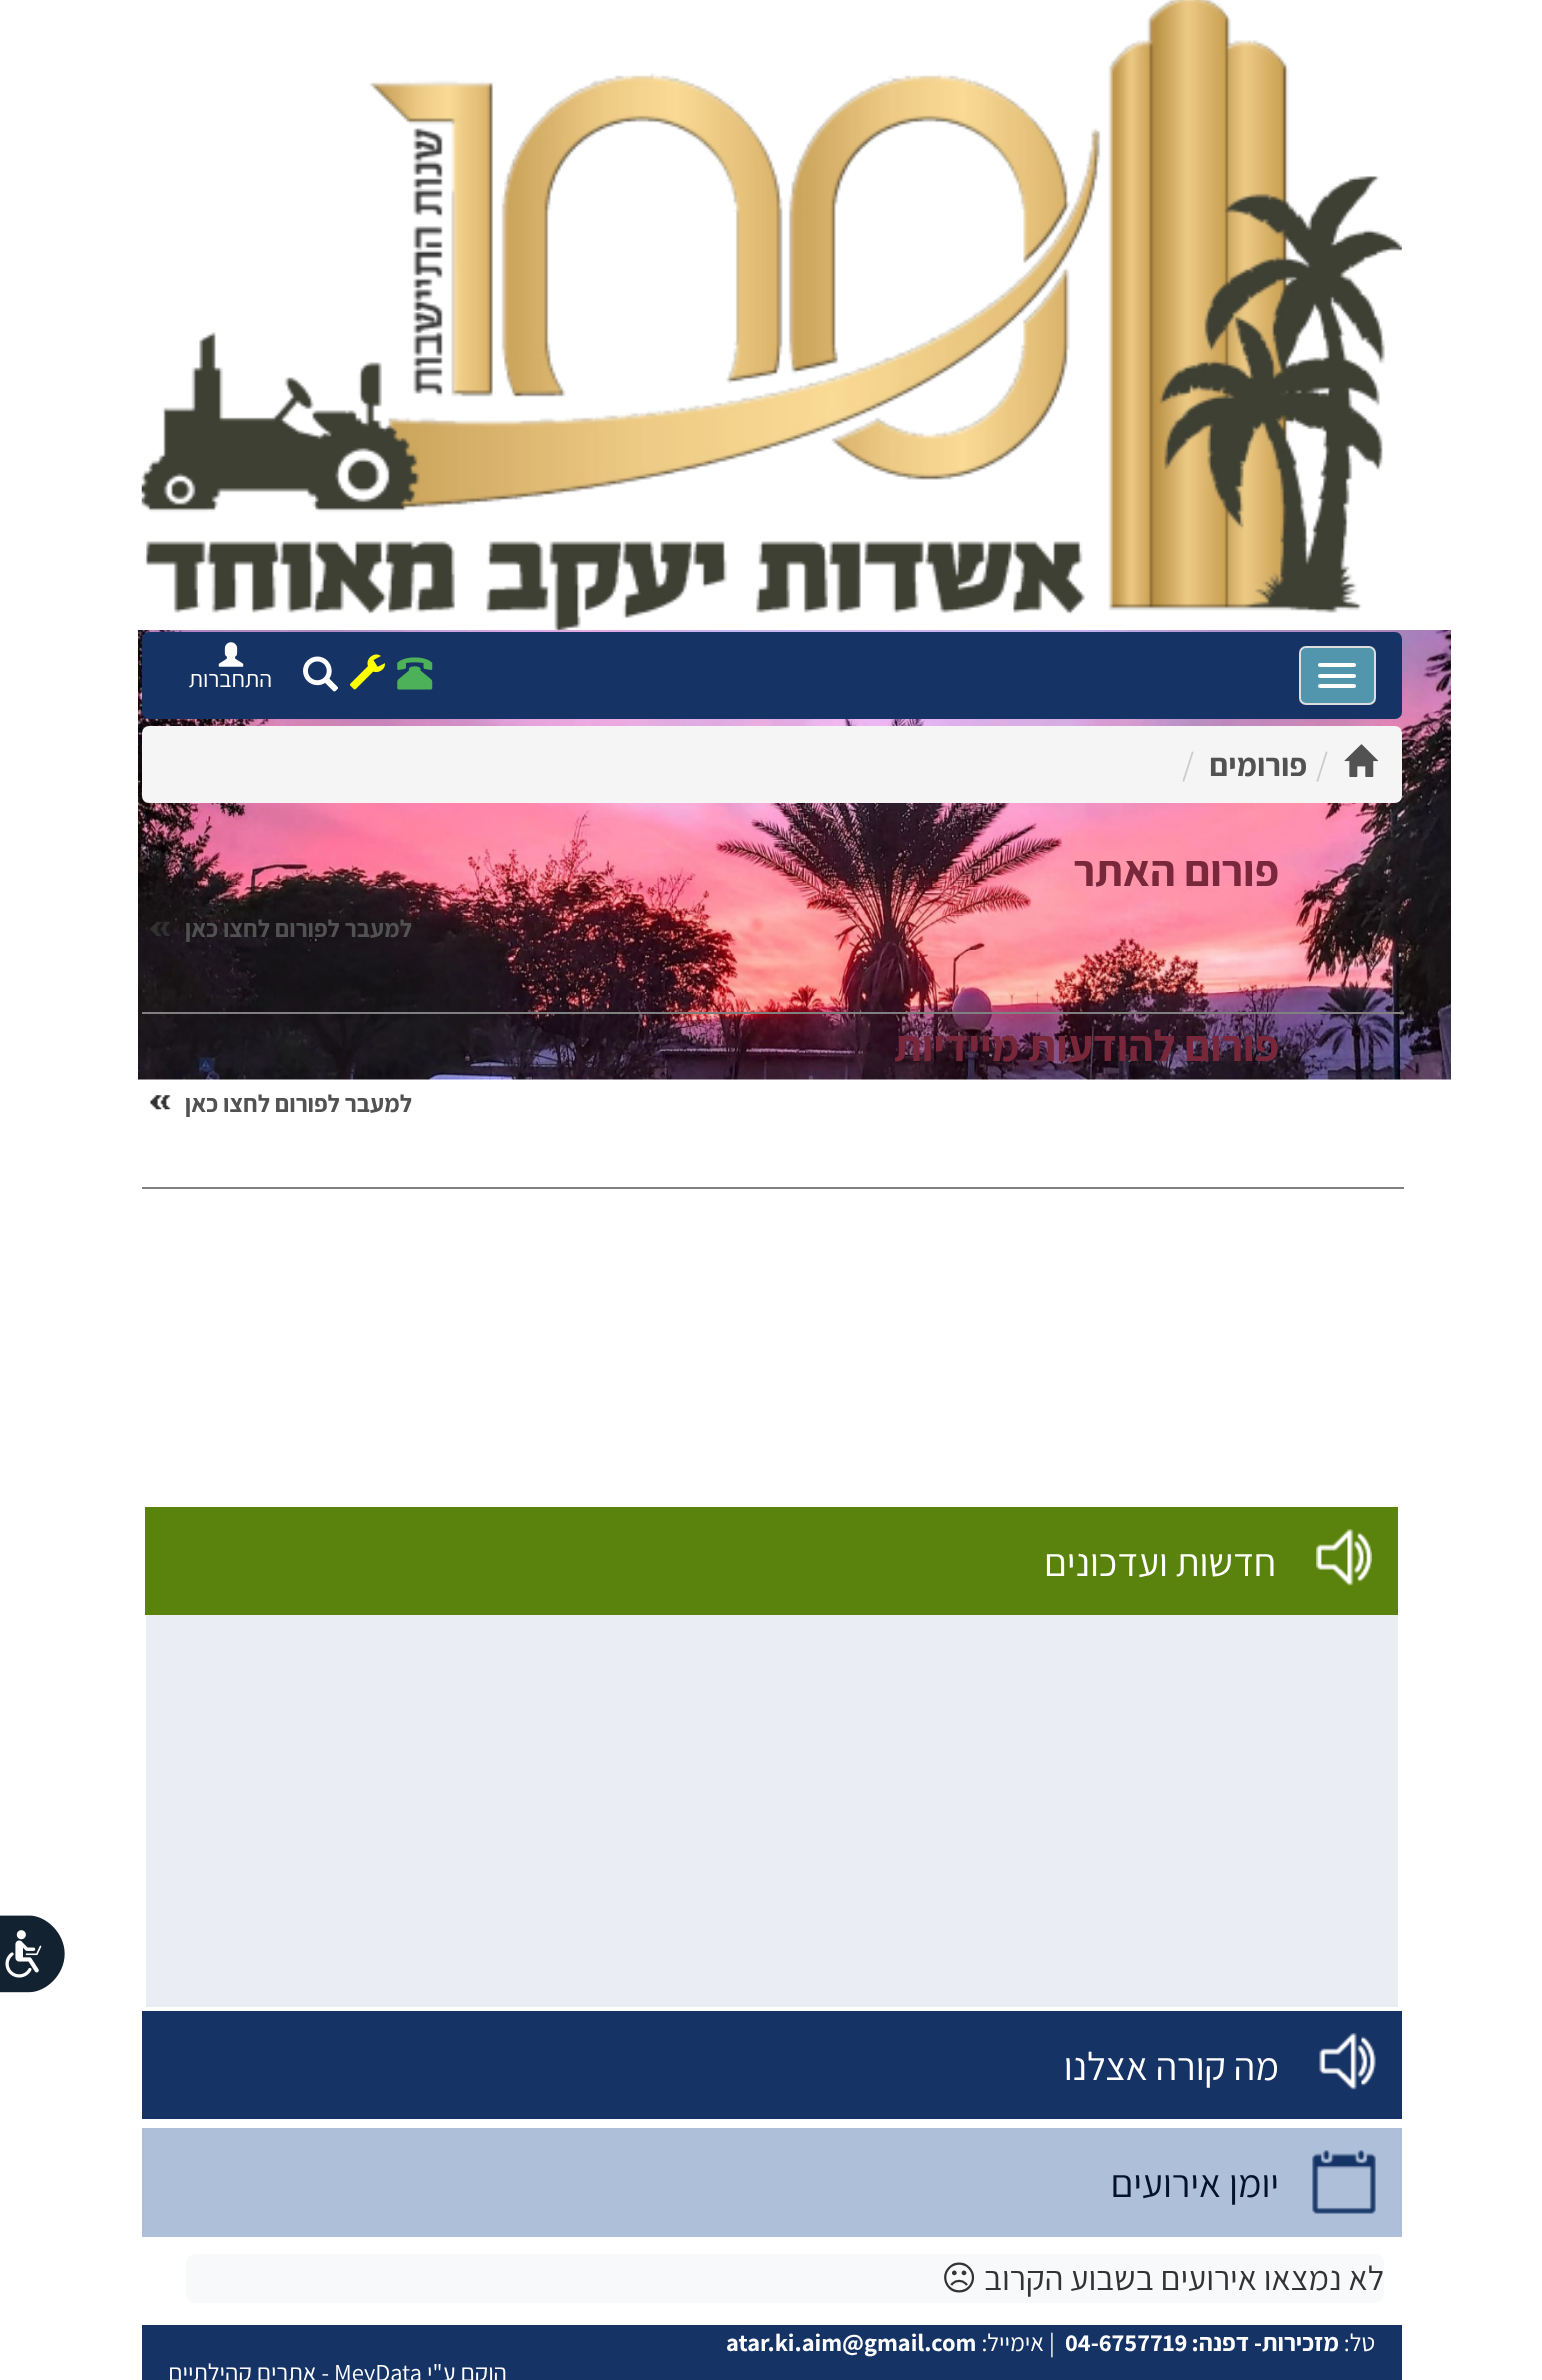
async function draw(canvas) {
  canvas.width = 1542
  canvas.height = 2380
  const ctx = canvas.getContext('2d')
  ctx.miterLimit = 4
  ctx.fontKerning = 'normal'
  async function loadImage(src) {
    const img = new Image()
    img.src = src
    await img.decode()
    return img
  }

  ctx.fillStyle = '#fff'
  ctx.fillRect(0, 0, 1542, 2380)
  ctx.drawImage(await loadImage('image0.png'), 141, 0, 1261, 630)
  ctx.drawImage(await loadImage('image1.png'), 138, 630, 1313, 450)
  ctx.fillStyle = '#153365'
  ctx.beginPath()
  ctx.roundRect(142, 632, 1260, 87, 7)
  ctx.fill()
  ctx.fillStyle = '#5296ad'
  ctx.beginPath()
  ctx.roundRect(1300, 647, 75, 57, 6)
  ctx.fill()
  ctx.strokeStyle = '#ddd'
  ctx.lineWidth = 2
  ctx.stroke()
  ctx.fillStyle = '#fff'
  ctx.beginPath()
  ctx.roundRect(1318, 663, 38, 4, 2)
  ctx.fill()
  ctx.beginPath()
  ctx.roundRect(1318, 674, 38, 4, 2)
  ctx.fill()
  ctx.beginPath()
  ctx.roundRect(1318, 684, 38, 4, 2)
  ctx.fill()
  ctx.drawImage(await loadImage('image2.png'), 397, 657, 36, 33)
  ctx.drawImage(await loadImage('image3.png'), 350, 654, 35, 36)
  ctx.drawImage(await loadImage('image4.png'), 303, 656, 35, 36)
  ctx.drawImage(await loadImage('image5.png'), 218, 642, 26, 25)
  ctx.direction = 'rtl'
  ctx.font = '23.5px Assistant'
  ctx.fillText('התחברות', 272, 687)
  ctx.fillStyle = '#f5f5f5'
  ctx.beginPath()
  ctx.roundRect(142, 726, 1260, 77, 7)
  ctx.fill()
  ctx.drawImage(await loadImage('image6.png'), 1344, 744, 35, 33)
  ctx.direction = 'ltr'
  ctx.font = '34.25px Assistant'
  ctx.fillStyle = '#ccc'
  ctx.fillText('/', 1316, 776)
  ctx.direction = 'rtl'
  ctx.font = 'bold 32px Assistant'
  ctx.fillStyle = '#525252'
  ctx.fillText('פורומים', 1307, 776)
  ctx.direction = 'ltr'
  ctx.font = '34.25px Assistant'
  ctx.fillStyle = '#ccc'
  ctx.fillText('/', 1182, 776)
  ctx.direction = 'rtl'
  ctx.font = 'bold 44px Assistant'
  ctx.fillStyle = '#79283b'
  ctx.fillText('פורום האתר', 1279, 886)
  ctx.font = 'bold 24.5px Assistant'
  ctx.fillStyle = '#525252'
  ctx.fillText('למעבר לפורום לחצו כאן', 412, 937)
  ctx.drawImage(await loadImage('image7.png'), 150, 922, 20, 14)
  ctx.fillStyle = '#808080'
  ctx.fillRect(142, 1012, 1262, 2)
  ctx.font = 'bold 44px Assistant'
  ctx.fillStyle = '#79283b'
  ctx.fillText('פורום להודעות מיידיות', 1279, 1061)
  ctx.font = 'bold 24.5px Assistant'
  ctx.fillStyle = '#525252'
  ctx.fillText('למעבר לפורום לחצו כאן', 412, 1112)
  ctx.drawImage(await loadImage('image8.png'), 150, 1095, 21, 15)
  ctx.fillStyle = '#808080'
  ctx.fillRect(142, 1187, 1262, 2)
  ctx.fillStyle = '#eaedf4'
  ctx.fillRect(146, 1615, 1252, 392)
  ctx.fillStyle = '#5a830d'
  ctx.fillRect(145, 1507, 1253, 108)
  ctx.drawImage(await loadImage('image9.png'), 1316, 1529, 56, 57)
  ctx.font = '39.25px Assistant'
  ctx.fillStyle = '#fff'
  ctx.fillText('חדשות ועדכונים', 1276, 1576)
  ctx.fillStyle = '#153365'
  ctx.fillRect(142, 2011, 1260, 108)
  ctx.drawImage(await loadImage('image10.png'), 1319, 2033, 57, 57)
  ctx.fillStyle = '#fff'
  ctx.fillText('מה קורה אצלנו', 1279, 2080)
  ctx.fillStyle = '#aebfd9'
  ctx.fillRect(142, 2128, 1260, 109)
  ctx.drawImage(await loadImage('image11.png'), 1312, 2150, 64, 64)
  ctx.fillStyle = '#03132c'
  ctx.fillText('יומן אירועים', 1279, 2197)
  ctx.fillStyle = '#f8f9fa'
  ctx.beginPath()
  ctx.roundRect(186, 2254, 1198, 49, 9)
  ctx.fill()
  ctx.font = '34.25px Assistant'
  ctx.fillStyle = '#333'
  ctx.fillText('לא נמצאו אירועים בשבוע הקרוב', 1384, 2290)
  ctx.font = '34.25px DejaVu Sans'
  ctx.fillText('☹', 977, 2290)
  ctx.fillStyle = '#153365'
  ctx.fillRect(142, 2325, 1260, 55)
  ctx.font = '24.5px Assistant'
  ctx.fillStyle = '#fff'
  ctx.fillText('טל:', 1375, 2351)
  ctx.font = 'bold 24.5px Assistant'
  ctx.fillText('מזכירות- דפנה:', 1339, 2351)
  ctx.direction = 'ltr'
  ctx.fillText('04-6757719', 1065, 2351)
  ctx.font = '24.5px Assistant'
  ctx.fillText('|', 1049, 2351)
  ctx.direction = 'rtl'
  ctx.fillText('אימייל:', 1044, 2351)
  ctx.direction = 'ltr'
  ctx.font = 'bold 24.5px Assistant'
  ctx.fillText('atar.ki.aim@gmail.com', 726, 2351)
  ctx.direction = 'rtl'
  ctx.font = '24.5px Assistant'
  ctx.fillText('הוקם ע"י', 507, 2381)
  ctx.direction = 'ltr'
  ctx.fillText('MeyData', 334, 2381)
  ctx.direction = 'rtl'
  ctx.fillText('- אתרים קהילתיים', 329, 2381)
  ctx.drawImage(await loadImage('image12.png'), 0, 1915, 65, 78)
}

draw(document.querySelector('canvas'))
